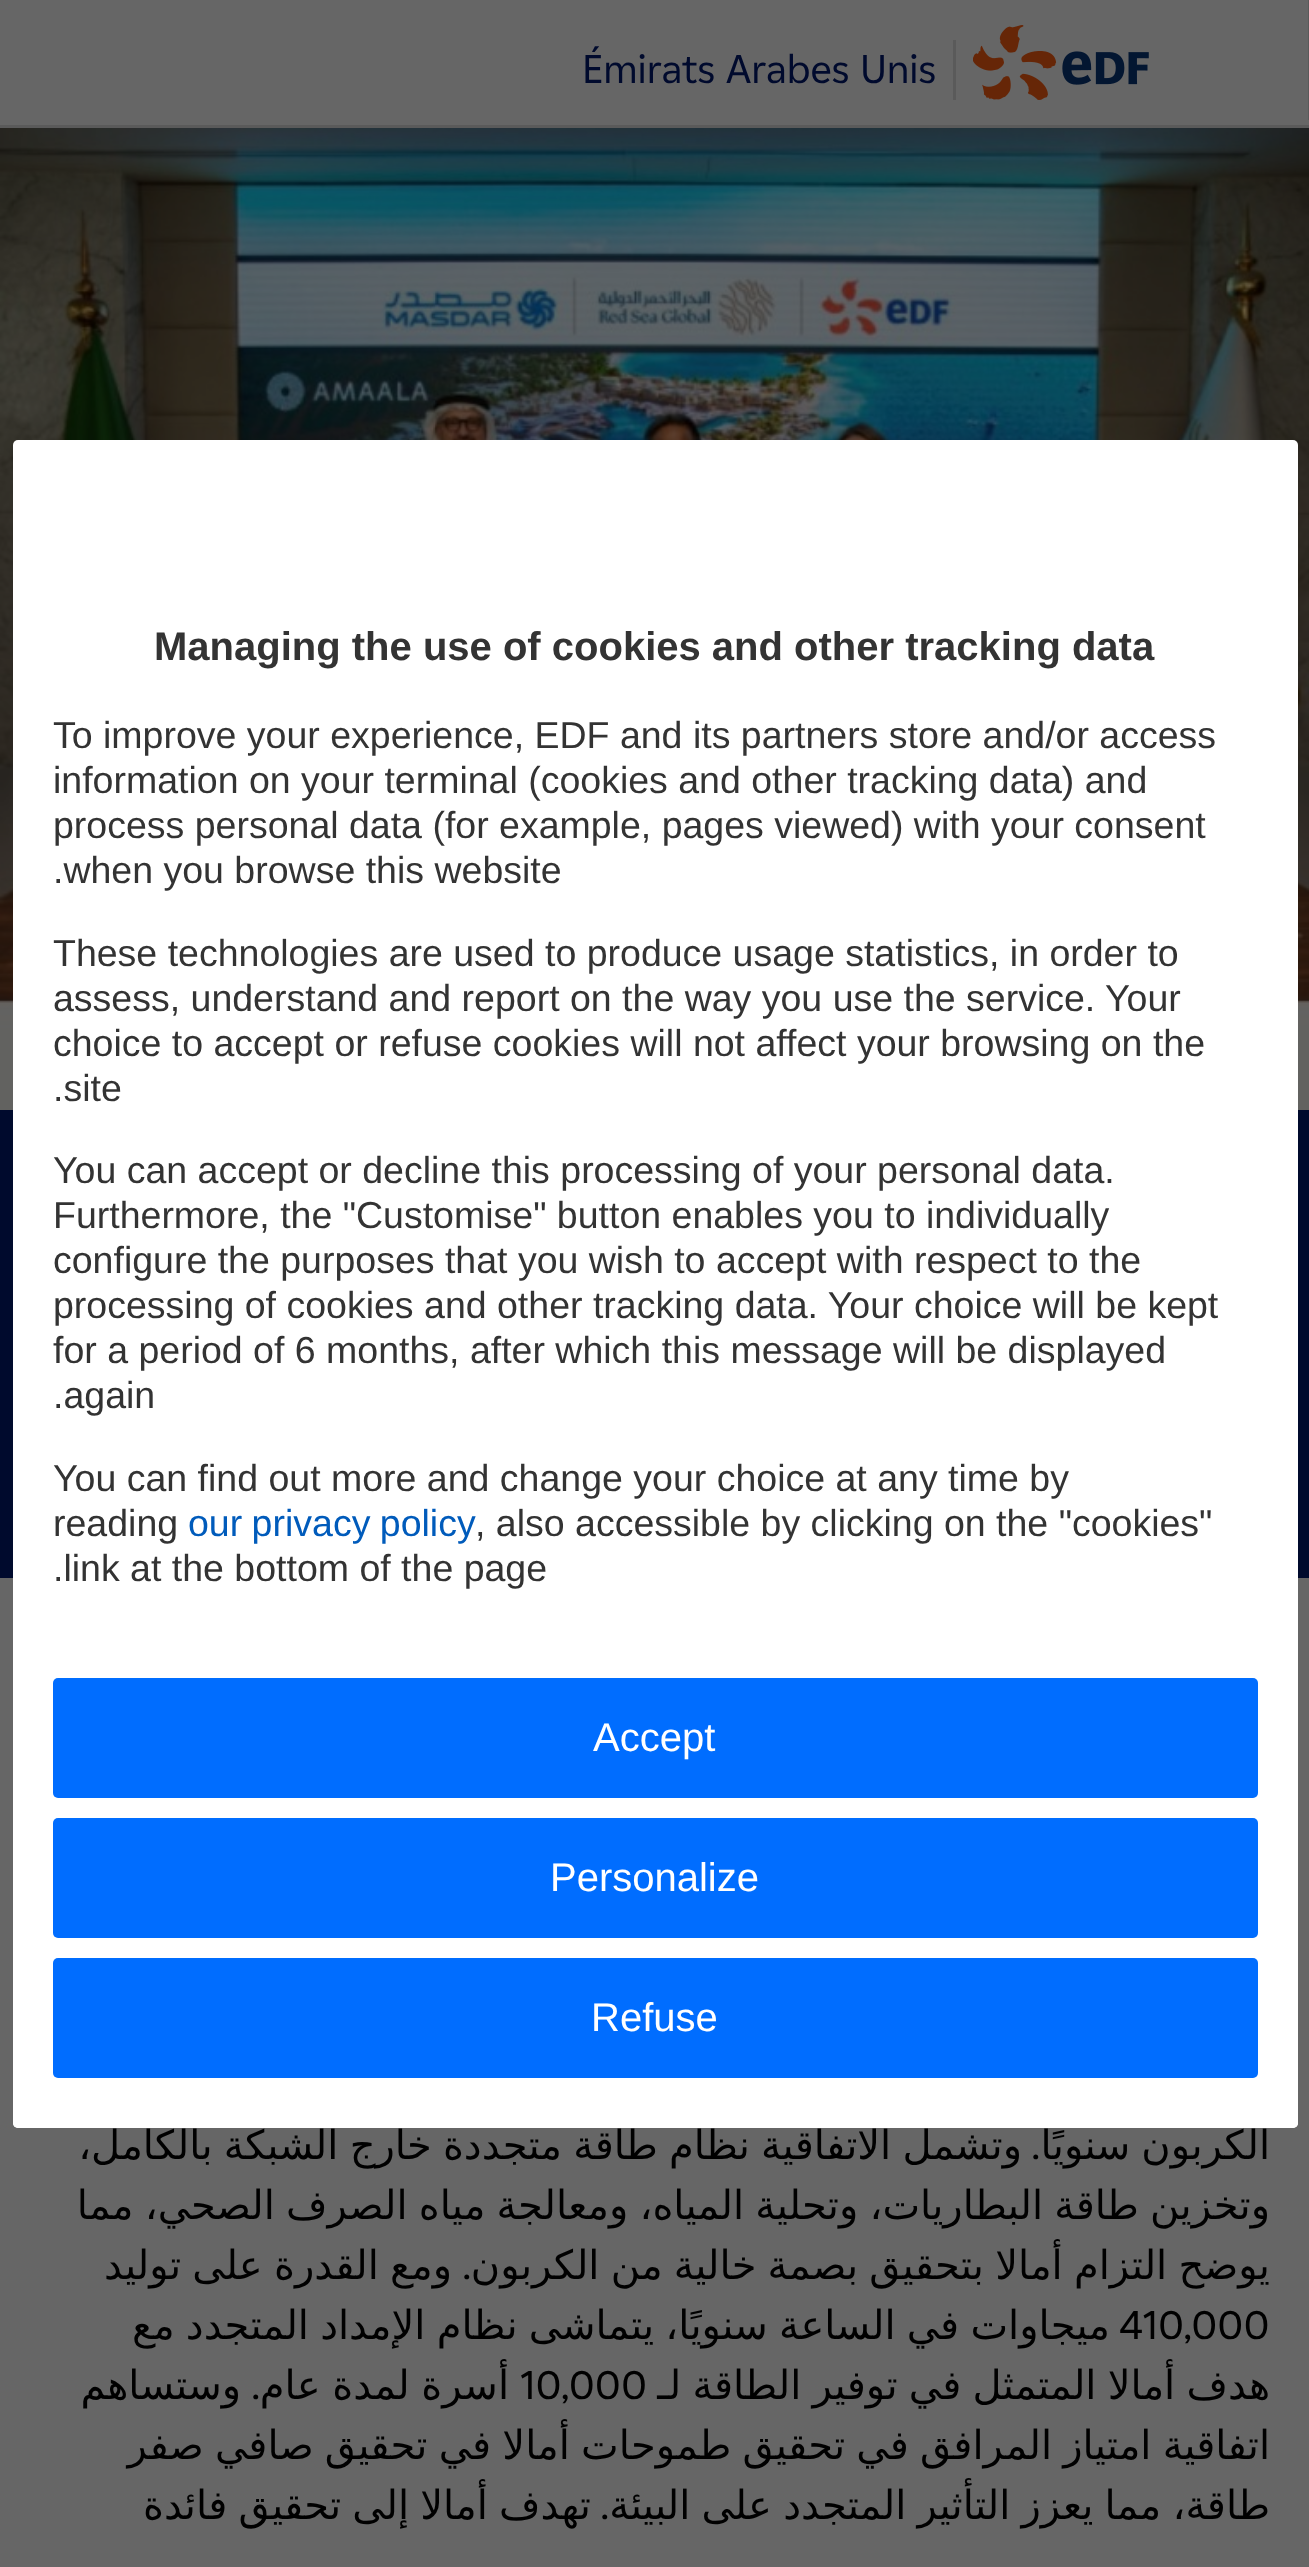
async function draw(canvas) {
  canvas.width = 1309
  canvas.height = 2567
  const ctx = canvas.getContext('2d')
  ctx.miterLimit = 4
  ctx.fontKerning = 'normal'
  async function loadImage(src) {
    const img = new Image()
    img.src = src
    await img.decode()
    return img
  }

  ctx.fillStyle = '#666'
  ctx.fillRect(0, 0, 1309, 2567)
  ctx.fillStyle = '#5a5a5a'
  ctx.fillRect(0, 125, 1309, 3)
  ctx.fillRect(953, 40, 3, 60)
  ctx.font = '40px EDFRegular'
  ctx.fillStyle = '#000a2d'
  ctx.fillText('Émirats Arabes Unis', 582, 83)
  ctx.drawImage(await loadImage('image0.png'), 973, 25, 176, 75)
  ctx.fillStyle = '#5a5a5a'
  ctx.fillRect(1308, 0, 1, 120)
  ctx.fillStyle = '#000a2d'
  ctx.fillRect(0, 1110, 1309, 468)
  ctx.drawImage(await loadImage('image1.png'), 0, 128, 1309, 982)
  ctx.wordSpacing = '-1.5px'
  ctx.direction = 'rtl'
  ctx.font = '40px DejaVu Sans'
  ctx.fillStyle = '#000'
  ctx.fillText('وتشمل الاتفاقية نظام طاقة متجددة خارج الشبكة بالكامل،', 1022, 2159)
  ctx.wordSpacing = '0px'
  ctx.font = '40px EDFRegular'
  ctx.fillText('.', 1040, 2159)
  ctx.wordSpacing = '-1.5px'
  ctx.font = '40px DejaVu Sans'
  ctx.fillText('الكربون سنويًا', 1270, 2159)
  ctx.fillText('وتخزين طاقة البطاريات، وتحلية المياه، ومعالجة مياه الصرف الصحي، مما', 1270, 2219)
  ctx.fillText('ومع القدرة على توليد', 452, 2279)
  ctx.wordSpacing = '0px'
  ctx.font = '40px EDFRegular'
  ctx.fillText('.', 471, 2279)
  ctx.wordSpacing = '-1.5px'
  ctx.font = '40px DejaVu Sans'
  ctx.fillText('يوضح التزام أمالا بتحقيق بصمة خالية من الكربون', 1270, 2279)
  ctx.fillText('ميجاوات في الساعة سنويًا، يتماشى نظام الإمداد المتجدد مع', 1110, 2339)
  ctx.wordSpacing = '0px'
  ctx.direction = 'ltr'
  ctx.font = '40px EDFRegular'
  ctx.fillText('410,000', 1119, 2339)
  ctx.direction = 'rtl'
  ctx.font = '40px DejaVu Sans'
  ctx.fillText('وستساهم', 241, 2399)
  ctx.font = '40px EDFRegular'
  ctx.fillText('.', 260, 2399)
  ctx.wordSpacing = '-1px'
  ctx.font = '40px DejaVu Sans'
  ctx.fillText('أسرة لمدة عام', 509, 2399)
  ctx.wordSpacing = '0px'
  ctx.direction = 'ltr'
  ctx.font = '40px EDFRegular'
  ctx.fillText('10,000', 520, 2399)
  ctx.wordSpacing = '-1.5px'
  ctx.direction = 'rtl'
  ctx.font = '40px DejaVu Sans'
  ctx.fillText('هدف أمالا المتمثل في توفير الطاقة لـ', 1270, 2399)
  ctx.fillText('اتفاقية امتياز المرافق في تحقيق طموحات أمالا في تحقيق صافي صفر', 1270, 2459)
  ctx.fillText('تهدف أمالا إلى تحقيق فائدة', 591, 2519)
  ctx.wordSpacing = '0px'
  ctx.font = '40px EDFRegular'
  ctx.fillText('.', 609, 2519)
  ctx.wordSpacing = '-1.5px'
  ctx.font = '40px DejaVu Sans'
  ctx.fillText('طاقة، مما يعزز التأثير المتجدد على البيئة', 1270, 2519)
  ctx.fillStyle = '#fff'
  ctx.beginPath()
  ctx.roundRect(13, 440, 1285, 1688, 5)
  ctx.fill()
  ctx.wordSpacing = '0px'
  ctx.direction = 'ltr'
  ctx.font = 'bold 40px Liberation Sans'
  ctx.fillStyle = '#333'
  ctx.fillText('Managing the use of cookies and other tracking data', 154, 660)
  ctx.font = '37.5px Liberation Sans'
  ctx.fillText('To improve your experience, EDF and its partners store and/or access', 53, 748)
  ctx.fillText('information on your terminal (cookies and other tracking data) and', 53, 793)
  ctx.fillText('process personal data (for example, pages viewed) with your consent', 53, 838)
  ctx.fillText('.when you browse this website', 53, 883)
  ctx.fillText('These technologies are used to produce usage statistics, in order to', 53, 966)
  ctx.fillText('assess, understand and report on the way you use the service. Your', 53, 1011)
  ctx.fillText('choice to accept or refuse cookies will not affect your browsing on the', 53, 1056)
  ctx.fillText('.site', 53, 1101)
  ctx.fillText('You can accept or decline this processing of your personal data.', 53, 1183)
  ctx.fillText('Furthermore, the "Customise" button enables you to individually', 53, 1228)
  ctx.fillText('configure the purposes that you wish to accept with respect to the', 53, 1273)
  ctx.fillText('processing of cookies and other tracking data. Your choice will be kept', 53, 1318)
  ctx.fillText('for a period of 6 months, after which this message will be displayed', 53, 1363)
  ctx.fillText('.again', 53, 1408)
  ctx.fillText('You can find out more and change your choice at any time by', 53, 1491)
  ctx.fillText('reading', 53, 1536)
  ctx.wordSpacing = '-1px'
  ctx.fillStyle = '#005bbb'
  ctx.fillText('our privacy policy', 188, 1536)
  ctx.wordSpacing = '0px'
  ctx.fillStyle = '#333'
  ctx.fillText(', also accessible by clicking on the "cookies"', 475, 1536)
  ctx.fillText('.link at the bottom of the page', 53, 1581)
  ctx.fillStyle = '#fff'
  ctx.beginPath()
  ctx.roundRect(13, 1628, 1285, 500, 5)
  ctx.fill()
  ctx.fillStyle = '#006dff'
  ctx.beginPath()
  ctx.roundRect(53, 1678, 1205, 120, 5)
  ctx.fill()
  ctx.font = '40px Liberation Sans'
  ctx.fillStyle = '#fff'
  ctx.fillText('Accept', 593, 1751)
  ctx.fillStyle = '#006dff'
  ctx.beginPath()
  ctx.roundRect(53, 1818, 1205, 120, 5)
  ctx.fill()
  ctx.fillStyle = '#fff'
  ctx.fillText('Personalize', 550, 1891)
  ctx.fillStyle = '#006dff'
  ctx.beginPath()
  ctx.roundRect(53, 1958, 1205, 120, 5)
  ctx.fill()
  ctx.fillStyle = '#fff'
  ctx.fillText('Refuse', 591, 2031)
}

draw(document.querySelector('canvas'))
